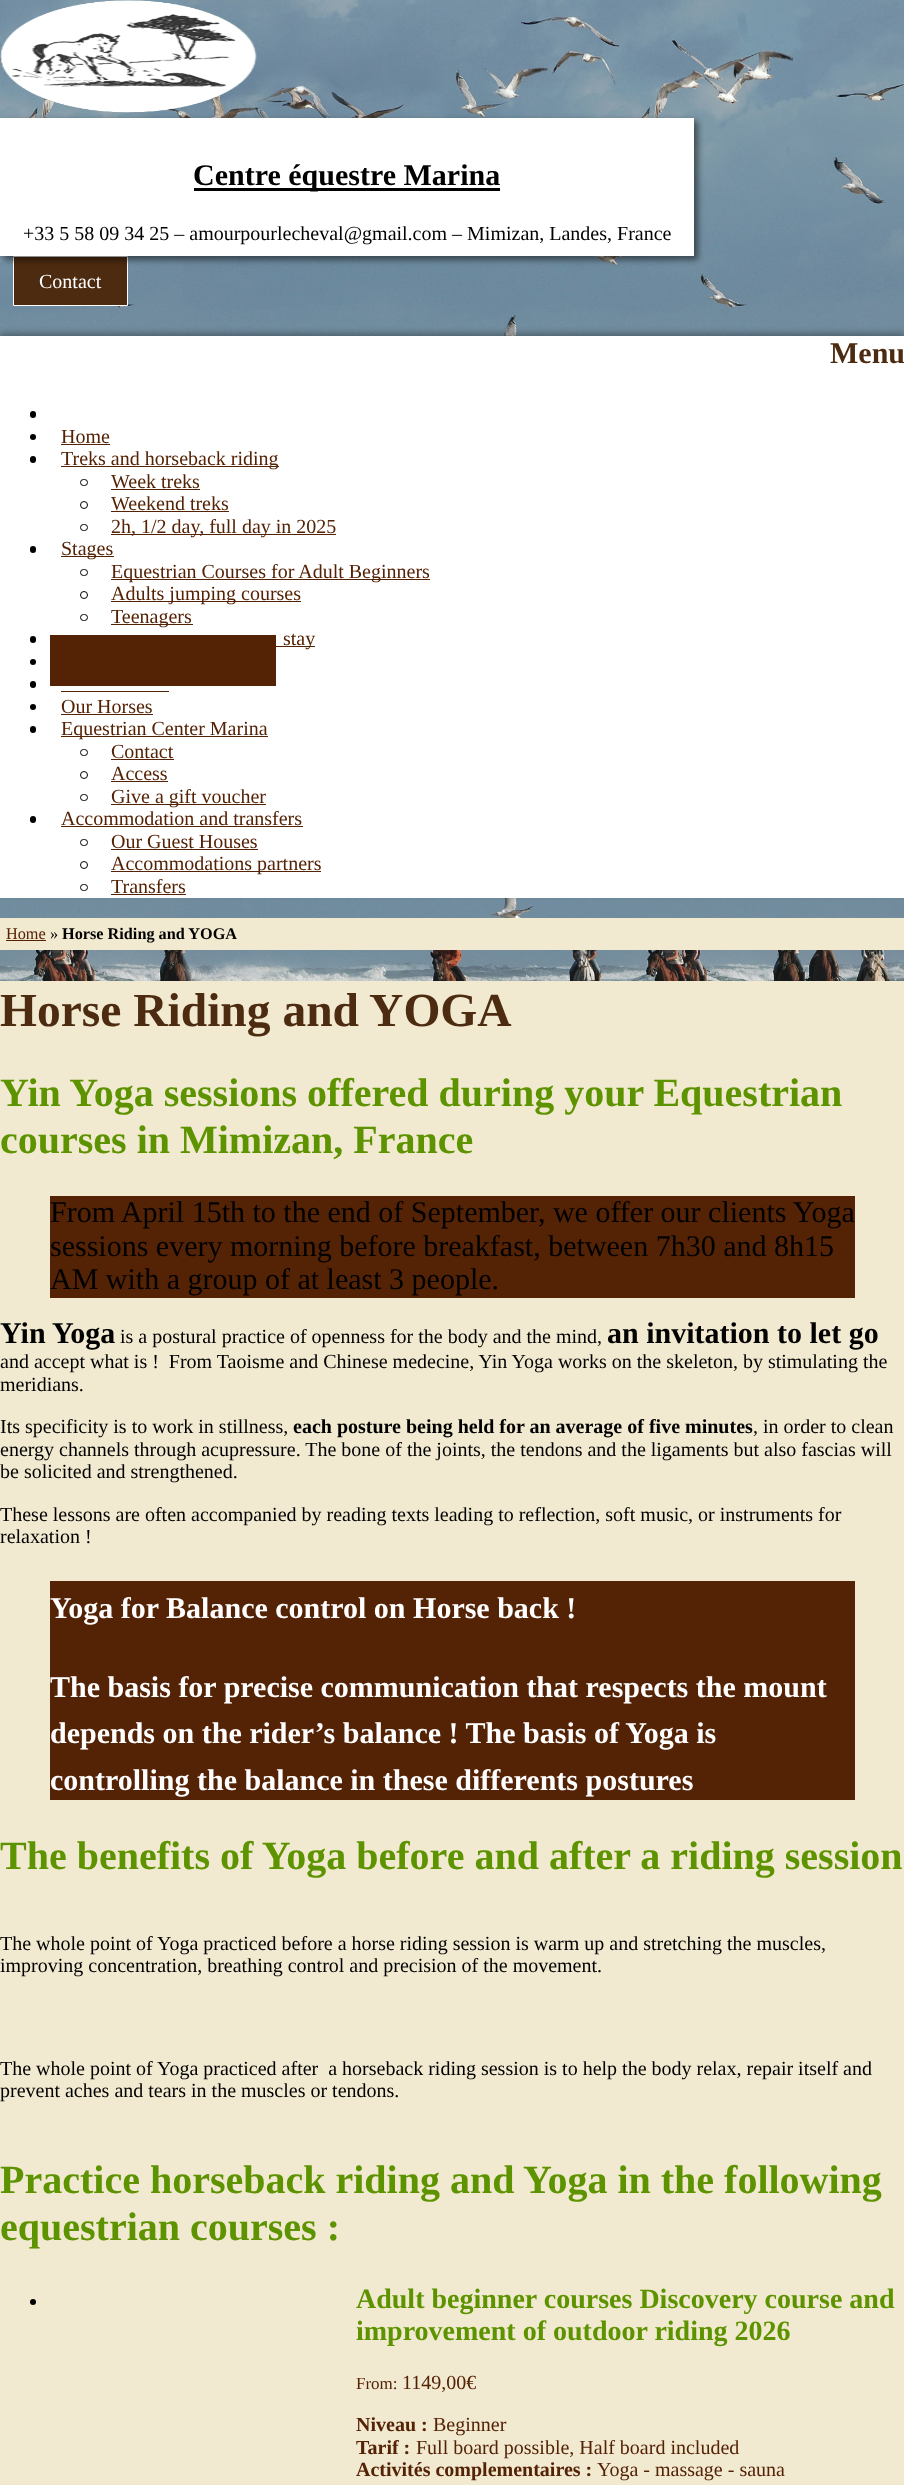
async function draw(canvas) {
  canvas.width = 904
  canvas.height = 2485
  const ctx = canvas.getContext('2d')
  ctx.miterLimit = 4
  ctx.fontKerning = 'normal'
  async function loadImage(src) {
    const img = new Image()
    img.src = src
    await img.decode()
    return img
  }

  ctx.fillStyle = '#fff'
  ctx.fillRect(0, 0, 904, 2485)
  ctx.drawImage(await loadImage('image0.png'), 0, 0, 904, 981)
  ctx.drawImage(await loadImage('image1.png'), 0, 0, 257, 113)
  ctx.fillStyle = '#4c2b10'
  ctx.beginPath()
  ctx.rect(13.5, 256.5, 114, 49)
  ctx.fill()
  ctx.strokeStyle = '#fff'
  ctx.stroke()
  ctx.fillStyle = '#00000080'
  ctx.filter = 'blur(3px)'
  ctx.beginPath()
  ctx.rect(4, 121, 694, 139)
  ctx.fill()
  ctx.filter = 'none'
  ctx.fillStyle = '#fff'
  ctx.fillRect(0, 118, 694, 138)
  ctx.fillStyle = '#000'
  ctx.fillRect(194, 188, 306, 3)
  ctx.font = 'bold 30px Liberation Serif'
  ctx.fillText('Centre équestre Marina', 193, 185)
  ctx.font = '20px Liberation Serif'
  ctx.fillText('+33 5 58 09 34 25 – amourpourlecheval@gmail.com – Mimizan, Landes, France', 23, 240)
  ctx.fillStyle = '#fff'
  ctx.fillText('Contact', 39, 288)
  ctx.fillStyle = '#0000004d'
  ctx.filter = 'blur(3px)'
  ctx.beginPath()
  ctx.rect(0, 333, 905, 561)
  ctx.fill()
  ctx.filter = 'none'
  ctx.fillStyle = '#fff'
  ctx.fillRect(0, 336, 904, 562)
  ctx.font = 'bold 30px Liberation Serif'
  ctx.fillStyle = '#4c2b10'
  ctx.fillText('Menu', 830, 363)
  ctx.fillStyle = '#000'
  ctx.beginPath()
  ctx.roundRect(30, 411, 6, 7, 3)
  ctx.fill()
  ctx.beginPath()
  ctx.arc(33, 437, 3, 0, 2 * Math.PI)
  ctx.fill()
  ctx.font = '20px Liberation Serif'
  ctx.fillStyle = '#542205'
  ctx.fillText('Home', 61, 443)
  ctx.fillRect(61, 444, 49, 1)
  ctx.fillStyle = '#000'
  ctx.beginPath()
  ctx.roundRect(30, 456, 6, 7, 3)
  ctx.fill()
  ctx.fillStyle = '#542205'
  ctx.fillRect(61, 466, 218, 1)
  ctx.fillText('Treks and horseback riding', 61, 465)
  ctx.beginPath()
  ctx.roundRect(80.5, 479.5, 7, 6, 3)
  ctx.strokeStyle = '#000'
  ctx.stroke()
  ctx.fillText('Week treks', 111, 488)
  ctx.fillRect(111, 489, 89, 1)
  ctx.beginPath()
  ctx.arc(84, 505, 3.5, 0, 2 * Math.PI)
  ctx.stroke()
  ctx.fillText('Weekend treks', 111, 510)
  ctx.fillRect(111, 511, 118, 1)
  ctx.beginPath()
  ctx.roundRect(80.5, 524.5, 7, 6, 3)
  ctx.stroke()
  ctx.fillRect(111, 534, 225, 1)
  ctx.fillText('2h, 1/2 day, full day in 2025', 111, 533)
  ctx.fillStyle = '#000'
  ctx.beginPath()
  ctx.roundRect(30, 546, 6, 7, 3)
  ctx.fill()
  ctx.fillStyle = '#542205'
  ctx.fillRect(61, 556, 53, 1)
  ctx.fillText('Stages', 61, 555)
  ctx.beginPath()
  ctx.roundRect(80.5, 569.5, 7, 6, 3)
  ctx.stroke()
  ctx.fillRect(111, 579, 319, 1)
  ctx.fillText('Equestrian Courses for Adult Beginners', 111, 578)
  ctx.beginPath()
  ctx.arc(84, 595, 3.5, 0, 2 * Math.PI)
  ctx.stroke()
  ctx.fillRect(111, 601, 190, 1)
  ctx.fillText('Adults jumping courses', 111, 600)
  ctx.beginPath()
  ctx.roundRect(80.5, 614.5, 7, 6, 3)
  ctx.stroke()
  ctx.fillRect(111, 624, 82, 1)
  ctx.fillText('Teenagers', 111, 623)
  ctx.fillStyle = '#000'
  ctx.beginPath()
  ctx.arc(33, 662, 3, 0, 2 * Math.PI)
  ctx.fill()
  ctx.fillStyle = '#542205'
  ctx.fillRect(50, 635, 226, 51)
  ctx.fillStyle = '#000'
  ctx.beginPath()
  ctx.roundRect(30, 636, 6, 7, 3)
  ctx.fill()
  ctx.fillStyle = '#542205'
  ctx.fillRect(276, 646, 39, 1)
  ctx.fillText('stay', 283, 645)
  ctx.fillStyle = '#000'
  ctx.beginPath()
  ctx.roundRect(30, 681, 6, 7, 3)
  ctx.fill()
  ctx.fillStyle = '#542205'
  ctx.fillRect(61, 691, 108, 1)
  ctx.fillStyle = '#000'
  ctx.beginPath()
  ctx.arc(33, 707, 3, 0, 2 * Math.PI)
  ctx.fill()
  ctx.fillStyle = '#542205'
  ctx.fillText('Our Horses', 61, 713)
  ctx.fillRect(61, 714, 92, 1)
  ctx.fillStyle = '#000'
  ctx.beginPath()
  ctx.roundRect(30, 726, 6, 7, 3)
  ctx.fill()
  ctx.fillStyle = '#542205'
  ctx.fillRect(61, 736, 207, 1)
  ctx.fillText('Equestrian Center Marina', 61, 735)
  ctx.beginPath()
  ctx.roundRect(80.5, 749.5, 7, 6, 3)
  ctx.stroke()
  ctx.fillText('Contact', 111, 758)
  ctx.fillRect(111, 759, 63, 1)
  ctx.beginPath()
  ctx.arc(84, 775, 3.5, 0, 2 * Math.PI)
  ctx.stroke()
  ctx.fillText('Access', 111, 780)
  ctx.fillRect(111, 781, 57, 1)
  ctx.beginPath()
  ctx.roundRect(80.5, 794.5, 7, 6, 3)
  ctx.stroke()
  ctx.fillRect(111, 804, 155, 1)
  ctx.fillText('Give a gift voucher', 111, 803)
  ctx.fillStyle = '#000'
  ctx.beginPath()
  ctx.roundRect(30, 816, 6, 7, 3)
  ctx.fill()
  ctx.fillStyle = '#542205'
  ctx.fillText('Accommodation and transfers', 61, 825)
  ctx.fillRect(61, 826, 242, 1)
  ctx.beginPath()
  ctx.roundRect(80.5, 839.5, 7, 6, 3)
  ctx.stroke()
  ctx.fillText('Our Guest Houses', 111, 848)
  ctx.fillRect(111, 849, 147, 1)
  ctx.beginPath()
  ctx.arc(84, 865, 3.5, 0, 2 * Math.PI)
  ctx.stroke()
  ctx.fillRect(111, 871, 210, 1)
  ctx.fillText('Accommodations partners', 111, 870)
  ctx.beginPath()
  ctx.roundRect(80.5, 884.5, 7, 6, 3)
  ctx.stroke()
  ctx.fillText('Transfers', 111, 893)
  ctx.fillRect(111, 894, 75, 1)
  ctx.fillStyle = '#f1e9d0'
  ctx.fillRect(0, 918, 904, 32)
  ctx.font = '16.25px Liberation Serif'
  ctx.fillStyle = '#542205'
  ctx.fillText('Home', 6, 939)
  ctx.fillRect(6, 940, 40, 1)
  ctx.fillStyle = '#000'
  ctx.fillText('»', 50, 939)
  ctx.font = 'bold 16.25px Liberation Serif'
  ctx.fillText('Horse Riding and YOGA', 62, 939)
  ctx.fillStyle = '#f1e9d0'
  ctx.fillRect(0, 981, 904, 1504)
  ctx.font = 'bold 47.5px Liberation Serif'
  ctx.fillStyle = '#4c2b10'
  ctx.fillText('Horse Riding and YOGA', 0, 1026)
  ctx.font = 'bold 40px Liberation Serif'
  ctx.fillStyle = '#5e9300'
  ctx.fillText('Yin Yoga sessions offered during your Equestrian', 0, 1106)
  ctx.fillText('courses in Mimizan, France', 0, 1153)
  ctx.fillStyle = '#542205'
  ctx.fillRect(50, 1196, 805, 102)
  ctx.font = '30px Liberation Serif'
  ctx.fillStyle = '#000'
  ctx.fillText('From April 15th to the end of September, we offer our clients Yoga', 50, 1222)
  ctx.fillText('sessions every morning before breakfast, between 7h30 and 8h15', 50, 1256)
  ctx.fillText('AM with a group of at least 3 people.', 50, 1289)
  ctx.font = 'bold 30px Liberation Serif'
  ctx.fillText('Yin Yoga', 0, 1343)
  ctx.font = '20px Liberation Serif'
  ctx.fillText('is a postural practice of openness for the body and the mind,', 120, 1343)
  ctx.font = 'bold 30px Liberation Serif'
  ctx.fillText('an invitation to let go', 607, 1343)
  ctx.font = '20px Liberation Serif'
  ctx.fillText('and accept what is !  From Taoisme and Chinese medecine, Yin Yoga works on the skeleton, by stimulating the', 0, 1368)
  ctx.fillText('meridians.', 0, 1391)
  ctx.fillText('Its specificity is to work in stillness,', 0, 1433)
  ctx.font = 'bold 20px Liberation Serif'
  ctx.fillText('each posture being held for an average of five minutes', 293, 1433)
  ctx.font = '20px Liberation Serif'
  ctx.fillText(', in order to clean', 753, 1433)
  ctx.fillText('energy channels through acupressure. The bone of the joints, the tendons and the ligaments but also fascias will', 0, 1456)
  ctx.fillText('be solicited and strengthened.', 0, 1478)
  ctx.fillText('These lessons are often accompanied by reading texts leading to reflection, soft music, or instruments for', 0, 1521)
  ctx.fillText('relaxation !', 0, 1543)
  ctx.fillStyle = '#542205'
  ctx.fillRect(50, 1581, 805, 219)
  ctx.font = 'bold 30px Liberation Serif'
  ctx.fillStyle = '#fff'
  ctx.fillText('Yoga for Balance control on Horse back !', 50, 1618)
  ctx.fillText('The basis for precise communication that respects the mount', 50, 1697)
  ctx.fillText('depends on the rider’s balance ! The basis of Yoga is', 50, 1743)
  ctx.fillText('controlling the balance in these differents postures', 50, 1790)
  ctx.font = 'bold 40px Liberation Serif'
  ctx.fillStyle = '#5e9300'
  ctx.fillText('The benefits of Yoga before and after a riding session', 0, 1869)
  ctx.font = '20px Liberation Serif'
  ctx.fillStyle = '#000'
  ctx.fillText('The whole point of Yoga practiced before a horse riding session is warm up and stretching the muscles,', 0, 1950)
  ctx.fillText('improving concentration, breathing control and precision of the movement.', 0, 1972)
  ctx.fillText('The whole point of Yoga practiced after  a horseback riding session is to help the body relax, repair itself and', 0, 2075)
  ctx.fillText('prevent aches and tears in the muscles or tendons.', 0, 2097)
  ctx.font = 'bold 40px Liberation Serif'
  ctx.fillStyle = '#5e9300'
  ctx.fillText('Practice horseback riding and Yoga in the following', 0, 2193)
  ctx.fillText('equestrian courses :', 0, 2240)
  ctx.fillStyle = '#000'
  ctx.beginPath()
  ctx.arc(33, 2302, 3, 0, 2 * Math.PI)
  ctx.fill()
  ctx.font = 'bold 28px Liberation Serif'
  ctx.fillStyle = '#5e9300'
  ctx.fillText('Adult beginner courses Discovery course and', 356, 2308)
  ctx.fillText('improvement of outdoor riding 2026', 356, 2340)
  ctx.font = '17px Liberation Serif'
  ctx.fillStyle = '#542205'
  ctx.fillText('From:', 356, 2389)
  ctx.font = '20px Liberation Serif'
  ctx.fillText('1149,00€', 402, 2389)
  ctx.font = 'bold 20px Liberation Serif'
  ctx.fillText('Niveau :', 356, 2431)
  ctx.font = '20px Liberation Serif'
  ctx.fillText('Beginner', 433, 2431)
  ctx.font = 'bold 20px Liberation Serif'
  ctx.fillText('Tarif :', 356, 2454)
  ctx.font = '20px Liberation Serif'
  ctx.fillText('Full board possible, Half board included', 416, 2454)
  ctx.font = 'bold 20px Liberation Serif'
  ctx.fillText('Activités complementaires :', 356, 2476)
  ctx.font = '20px Liberation Serif'
  ctx.fillText('Yoga - massage - sauna', 597, 2476)
}

draw(document.querySelector('canvas'))
